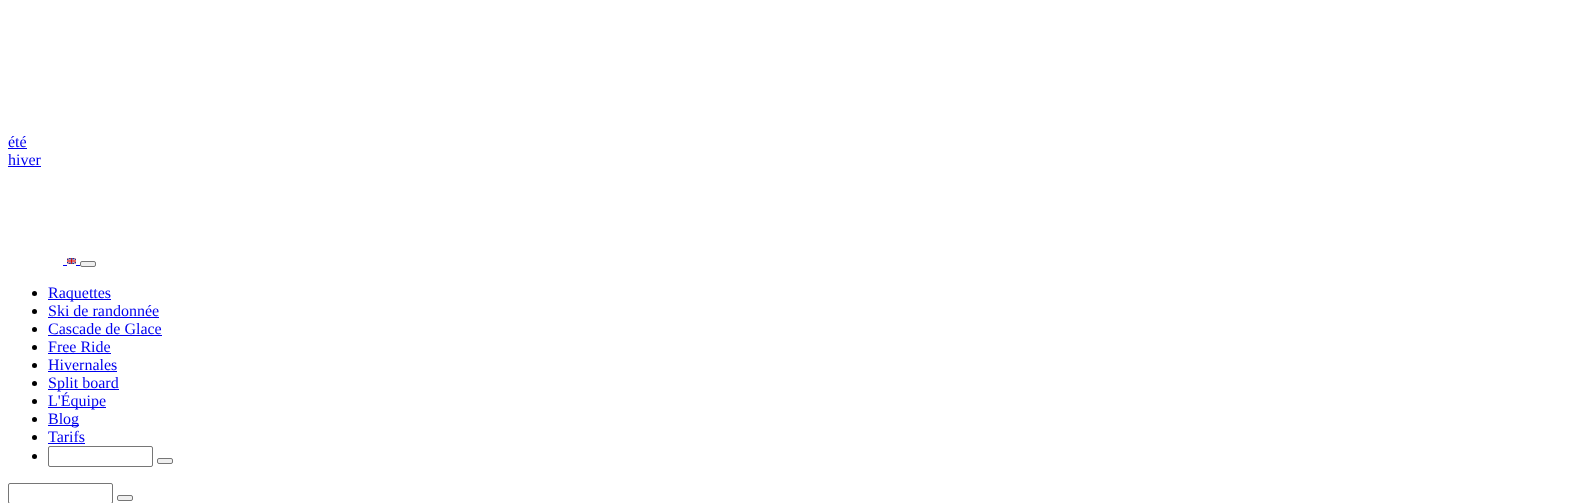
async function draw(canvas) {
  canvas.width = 1584
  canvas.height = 503
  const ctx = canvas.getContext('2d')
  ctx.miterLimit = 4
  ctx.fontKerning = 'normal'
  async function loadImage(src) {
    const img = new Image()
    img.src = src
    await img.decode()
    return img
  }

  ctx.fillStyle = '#fff'
  ctx.fillRect(0, 0, 1584, 503)
  ctx.font = '16px Liberation Serif'
  ctx.fillStyle = '#00e'
  ctx.fillText('été', 8, 147)
  ctx.fillRect(8, 148, 19, 1)
  ctx.fillText('hiver', 8, 165)
  ctx.fillRect(8, 166, 33, 1)
  ctx.fillRect(63, 265, 4, 1)
  ctx.drawImage(await loadImage('image0.png'), 67, 258, 9, 6)
  ctx.fillRect(76, 265, 4, 1)
  ctx.fillStyle = '#efefef'
  ctx.beginPath()
  ctx.roundRect(80.5, 261.5, 15, 5, 1.5)
  ctx.fill()
  ctx.strokeStyle = '#767676'
  ctx.stroke()
  ctx.fillStyle = '#000'
  ctx.beginPath()
  ctx.arc(34.5, 293.5, 2.5, 0, 2 * Math.PI)
  ctx.fill()
  ctx.fillStyle = '#00e'
  ctx.fillRect(48, 299, 63, 1)
  ctx.fillText('Raquettes', 48, 298)
  ctx.fillStyle = '#000'
  ctx.beginPath()
  ctx.arc(34.5, 311.5, 2.5, 0, 2 * Math.PI)
  ctx.fill()
  ctx.fillStyle = '#00e'
  ctx.fillText('Ski de randonnée', 48, 316)
  ctx.fillRect(48, 317, 111, 1)
  ctx.fillStyle = '#000'
  ctx.beginPath()
  ctx.arc(34.5, 329.5, 2.5, 0, 2 * Math.PI)
  ctx.fill()
  ctx.fillStyle = '#00e'
  ctx.fillText('Cascade de Glace', 48, 334)
  ctx.fillRect(48, 335, 114, 1)
  ctx.fillStyle = '#000'
  ctx.beginPath()
  ctx.arc(34.5, 347.5, 2.5, 0, 2 * Math.PI)
  ctx.fill()
  ctx.fillStyle = '#00e'
  ctx.fillText('Free Ride', 48, 352)
  ctx.fillRect(48, 353, 63, 1)
  ctx.fillStyle = '#000'
  ctx.beginPath()
  ctx.arc(34.5, 365.5, 2.5, 0, 2 * Math.PI)
  ctx.fill()
  ctx.fillStyle = '#00e'
  ctx.fillText('Hivernales', 48, 370)
  ctx.fillRect(48, 371, 69, 1)
  ctx.fillStyle = '#000'
  ctx.beginPath()
  ctx.arc(34.5, 383.5, 2.5, 0, 2 * Math.PI)
  ctx.fill()
  ctx.fillStyle = '#00e'
  ctx.fillRect(48, 389, 71, 1)
  ctx.fillText('Split board', 48, 388)
  ctx.fillStyle = '#000'
  ctx.beginPath()
  ctx.arc(34.5, 401.5, 2.5, 0, 2 * Math.PI)
  ctx.fill()
  ctx.fillStyle = '#00e'
  ctx.fillRect(48, 407, 58, 1)
  ctx.fillText('L\'Équipe', 48, 406)
  ctx.fillStyle = '#000'
  ctx.beginPath()
  ctx.arc(34.5, 419.5, 2.5, 0, 2 * Math.PI)
  ctx.fill()
  ctx.fillStyle = '#00e'
  ctx.fillRect(48, 425, 31, 1)
  ctx.fillText('Blog', 48, 424)
  ctx.fillStyle = '#000'
  ctx.beginPath()
  ctx.arc(34.5, 437.5, 2.5, 0, 2 * Math.PI)
  ctx.fill()
  ctx.fillStyle = '#00e'
  ctx.fillText('Tarifs', 48, 442)
  ctx.fillRect(48, 443, 37, 1)
  ctx.fillStyle = '#000'
  ctx.beginPath()
  ctx.arc(34.5, 456.5, 2.5, 0, 2 * Math.PI)
  ctx.fill()
  ctx.beginPath()
  ctx.roundRect(48.5, 446.5, 104, 20, 1.5)
  ctx.stroke()
  ctx.fillStyle = '#efefef'
  ctx.beginPath()
  ctx.roundRect(157.5, 458.5, 15, 5, 1.5)
  ctx.fill()
  ctx.stroke()
  ctx.beginPath()
  ctx.roundRect(8.5, 483.5, 104, 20, 1.5)
  ctx.stroke()
  ctx.beginPath()
  ctx.roundRect(117.5, 495.5, 15, 5, 1.5)
  ctx.fill()
  ctx.stroke()
}

draw(document.querySelector('canvas'))
